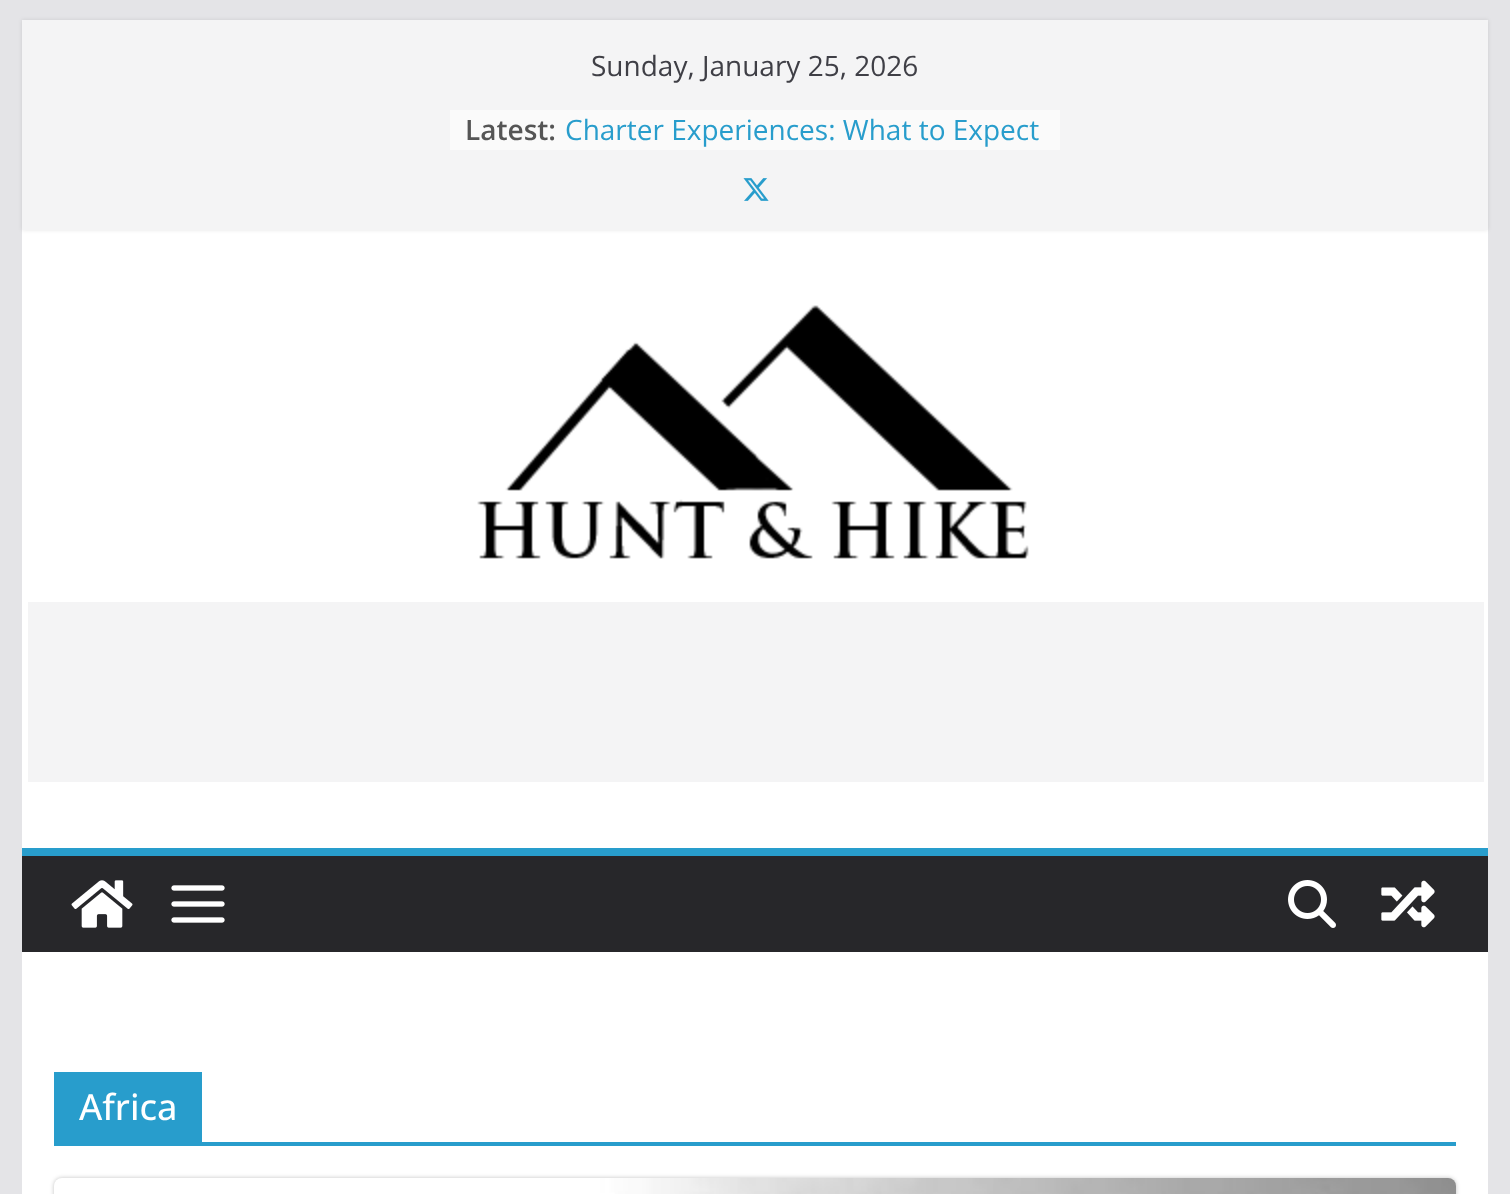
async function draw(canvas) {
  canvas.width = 1510
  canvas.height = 1194
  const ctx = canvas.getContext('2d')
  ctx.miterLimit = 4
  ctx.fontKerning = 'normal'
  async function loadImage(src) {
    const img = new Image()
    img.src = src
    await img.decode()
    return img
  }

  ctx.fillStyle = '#e4e4e7'
  ctx.fillRect(0, 0, 1510, 1194)
  ctx.fillStyle = '#fff'
  ctx.fillRect(22, 230, 1466, 618)
  ctx.fillStyle = '#0000001a'
  ctx.filter = 'blur(2px)'
  ctx.beginPath()
  ctx.rect(22, 20, 1466, 210)
  ctx.fill()
  ctx.filter = 'none'
  ctx.fillStyle = '#f4f4f5'
  ctx.fillRect(22, 20, 1466, 210)
  ctx.font = '28px Open Sans'
  ctx.fillStyle = '#3f3f46'
  ctx.fillText('Sunday, January 25, 2026', 591, 76)
  ctx.fillStyle = '#fafafa'
  ctx.fillRect(450, 110, 610, 40)
  ctx.font = '600 28px Open Sans'
  ctx.fillStyle = '#555'
  ctx.fillText('Latest:', 465, 140)
  ctx.font = '28px Open Sans'
  ctx.fillStyle = '#289dcc'
  ctx.fillText('Charter Experiences: What to Expect', 565, 140)
  ctx.drawImage(await loadImage('image0.png'), 743, 178, 26, 23)
  ctx.drawImage(await loadImage('image1.png'), 477, 305, 552, 254)
  ctx.fillStyle = '#f4f4f5'
  ctx.fillRect(28, 602, 1456, 180)
  ctx.fillStyle = '#27272a'
  ctx.fillRect(22, 856, 1466, 96)
  ctx.fillStyle = '#289dcc'
  ctx.fillRect(22, 848, 1466, 8)
  ctx.drawImage(await loadImage('image2.png'), 71, 880, 62, 48)
  ctx.drawImage(await loadImage('image3.png'), 171, 885, 54, 38)
  ctx.drawImage(await loadImage('image4.png'), 1288, 880, 48, 48)
  ctx.drawImage(await loadImage('image5.png'), 1381, 880, 54, 48)
  ctx.fillStyle = '#fff'
  ctx.fillRect(22, 952, 1466, 242)
  ctx.fillStyle = '#289dcc'
  ctx.fillRect(54, 1142, 1402, 4)
  ctx.fillRect(54, 1072, 148, 70)
  ctx.font = '500 36px Open Sans'
  ctx.fillStyle = '#fff'
  ctx.fillText('Africa', 79, 1120)
  ctx.fillStyle = '#0000003d'
  ctx.filter = 'blur(2px)'
  ctx.beginPath()
  ctx.roundRect(54, 1178, 1402, 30, 8)
  ctx.fill()
  ctx.filter = 'none'
  ctx.drawImage(await loadImage('image6.png'), 54, 1178, 1402, 16)
}

draw(document.querySelector('canvas'))
